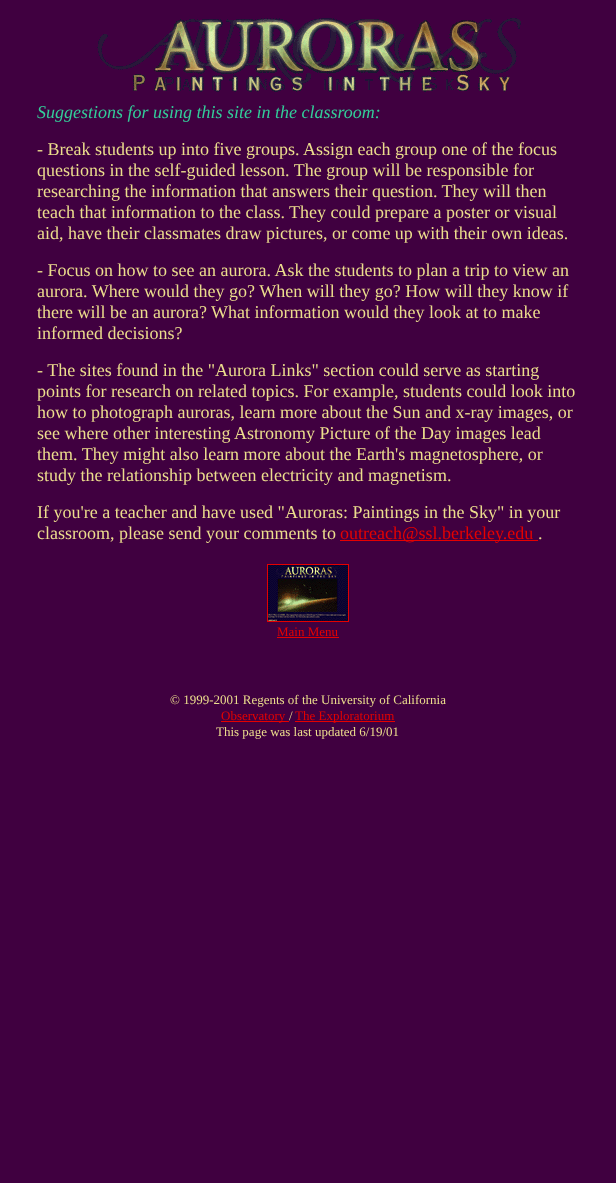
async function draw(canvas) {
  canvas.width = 616
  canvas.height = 1183
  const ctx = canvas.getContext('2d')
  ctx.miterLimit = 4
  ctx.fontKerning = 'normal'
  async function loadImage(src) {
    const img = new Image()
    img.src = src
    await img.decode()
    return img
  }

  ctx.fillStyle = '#400040'
  ctx.fillRect(0, 0, 616, 1183)
  ctx.drawImage(await loadImage('image0.png'), 97, 18, 424, 74)
  ctx.font = 'italic 18px Liberation Serif'
  ctx.fillStyle = '#3c9'
  ctx.fillText('Suggestions for using this site in the classroom:', 37, 118)
  ctx.font = '18px Liberation Serif'
  ctx.fillStyle = '#ecdd8d'
  ctx.fillText('- Break students up into five groups. Assign each group one of the focus', 37, 155)
  ctx.fillText('questions in the self-guided lesson. The group will be responsible for', 37, 176)
  ctx.fillText('researching the information that answers their question. They will then', 37, 197)
  ctx.fillText('teach that information to the class. They could prepare a poster or visual', 37, 218)
  ctx.fillText('aid, have their classmates draw pictures, or come up with their own ideas.', 37, 239)
  ctx.fillText('- Focus on how to see an aurora. Ask the students to plan a trip to view an', 37, 276)
  ctx.fillText('aurora. Where would they go? When will they go? How will they know if', 37, 297)
  ctx.fillText('there will be an aurora? What information would they look at to make', 37, 318)
  ctx.fillText('informed decisions?', 37, 339)
  ctx.fillText('- The sites found in the "Aurora Links" section could serve as starting', 37, 376)
  ctx.fillText('points for research on related topics. For example, students could look into', 37, 397)
  ctx.fillText('how to photograph auroras, learn more about the Sun and x-ray images, or', 37, 418)
  ctx.fillText('see where other interesting Astronomy Picture of the Day images lead', 37, 439)
  ctx.fillText('them. They might also learn more about the Earth\'s magnetosphere, or', 37, 460)
  ctx.fillText('study the relationship between electricity and magnetism.', 37, 481)
  ctx.fillText('If you\'re a teacher and have used "Auroras: Paintings in the Sky" in your', 37, 518)
  ctx.fillText('classroom, please send your comments to', 37, 539)
  ctx.fillStyle = '#e50000'
  ctx.fillRect(340, 540, 198, 1)
  ctx.fillText('outreach@ssl.berkeley.edu', 340, 539)
  ctx.fillStyle = '#ecdd8d'
  ctx.fillText('.', 538, 539)
  ctx.strokeStyle = '#e50000'
  ctx.strokeRect(267.5, 564.5, 81, 57)
  ctx.drawImage(await loadImage('image1.png'), 268, 565, 80, 56)
  ctx.font = '13px Liberation Serif'
  ctx.fillStyle = '#e50000'
  ctx.fillText('Main Menu', 277, 636)
  ctx.fillRect(277, 637, 62, 1)
  ctx.fillStyle = '#ecdd8d'
  ctx.fillText('© 1999-2001 Regents of the University of California', 170, 704)
  ctx.fillStyle = '#e50000'
  ctx.fillRect(221, 721, 68, 1)
  ctx.fillText('Observatory', 221, 720)
  ctx.fillStyle = '#ecdd8d'
  ctx.fillText('/', 289, 720)
  ctx.fillStyle = '#e50000'
  ctx.fillRect(295, 721, 100, 1)
  ctx.fillText('The Exploratorium', 295, 720)
  ctx.fillStyle = '#ecdd8d'
  ctx.fillText('This page was last updated 6/19/01', 216, 736)
}

draw(document.querySelector('canvas'))
